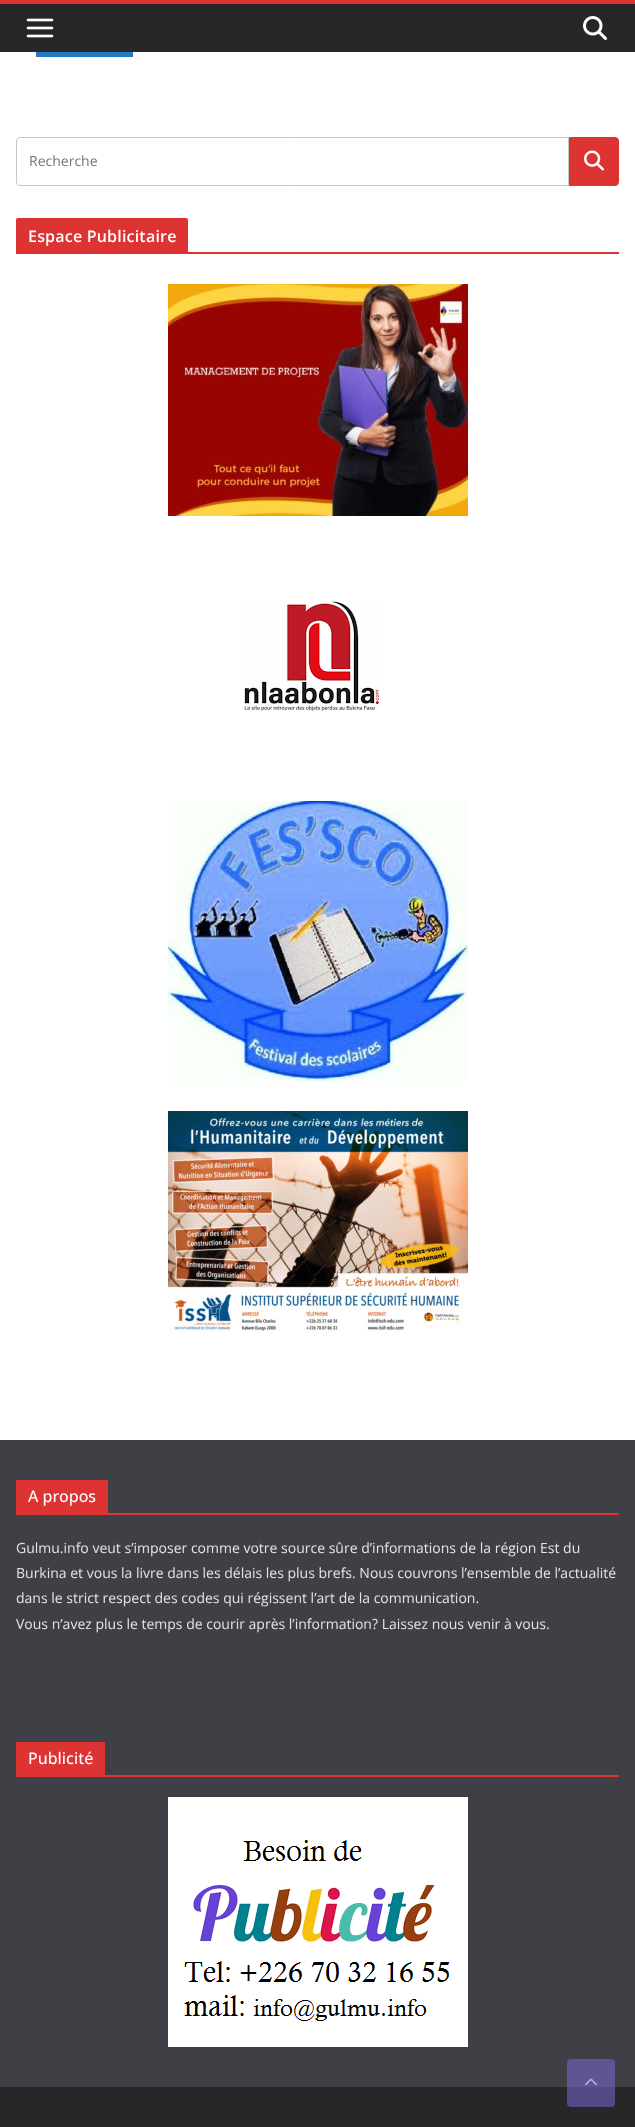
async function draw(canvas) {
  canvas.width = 635
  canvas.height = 2127
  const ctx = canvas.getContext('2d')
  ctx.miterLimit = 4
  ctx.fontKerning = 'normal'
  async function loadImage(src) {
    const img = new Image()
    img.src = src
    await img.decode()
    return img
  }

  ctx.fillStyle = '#fff'
  ctx.fillRect(0, 0, 635, 2127)
  ctx.fillStyle = '#d33'
  ctx.fillRect(36, 55, 97, 2)
  ctx.fillStyle = '#257bc1'
  ctx.beginPath()
  ctx.roundRect(36, 24, 97, 33, 2)
  ctx.fill()
  ctx.fillStyle = '#27272a'
  ctx.fillRect(0, 4, 635, 48)
  ctx.fillStyle = '#d33'
  ctx.fillRect(0, 0, 635, 4)
  ctx.drawImage(await loadImage('image0.png'), 26, 18, 28, 20)
  ctx.drawImage(await loadImage('image1.png'), 583, 16, 24, 24)
  ctx.beginPath()
  ctx.roundRect(16.5, 137.5, 552, 48, [3.5, 0, 0, 3.5])
  ctx.strokeStyle = '#c7c7c7'
  ctx.stroke()
  ctx.font = '14px Open Sans'
  ctx.fillStyle = '#757575'
  ctx.fillText('Recherche', 29, 166)
  ctx.fillStyle = '#d33'
  ctx.beginPath()
  ctx.roundRect(569.5, 137.5, 49, 48, [0, 3.5, 3.5, 0])
  ctx.fill()
  ctx.strokeStyle = '#d33'
  ctx.stroke()
  ctx.drawImage(await loadImage('image2.png'), 584, 150, 20, 21)
  ctx.fillRect(16, 252, 603, 2)
  ctx.beginPath()
  ctx.roundRect(16, 218, 172, 34, [2, 2, 0, 0])
  ctx.fill()
  ctx.letterSpacing = '0.2px'
  ctx.font = '600 16px Open Sans'
  ctx.fillStyle = '#fff'
  ctx.fillText('Espace Publicitaire', 28, 242)
  ctx.drawImage(await loadImage('image3.png'), 168, 284, 300, 232)
  ctx.drawImage(await loadImage('image4.png'), 244, 601, 137, 110)
  ctx.drawImage(await loadImage('image5.png'), 168, 801, 300, 280)
  ctx.drawImage(await loadImage('image6.png'), 168, 1111, 300, 222)
  ctx.fillStyle = '#3f3f46'
  ctx.fillRect(0, 1440, 635, 647)
  ctx.fillStyle = '#d33'
  ctx.fillRect(16, 1513, 603, 2)
  ctx.fillRect(16, 1480, 92, 33)
  ctx.letterSpacing = '0px'
  ctx.font = '500 16px Open Sans'
  ctx.fillStyle = '#fff'
  ctx.fillText('A propos', 28, 1502)
  ctx.font = '14px Open Sans'
  ctx.fillStyle = '#e4e4e7'
  ctx.fillText('Gulmu.info veut s’imposer comme votre source sûre d’informations de la région Est du', 16, 1553)
  ctx.fillText('Burkina et vous la livre dans les délais les plus brefs. Nous couvrons l’ensemble de l’actualité', 16, 1578)
  ctx.fillText('dans le strict respect des codes qui régissent l’art de la communication.', 16, 1603)
  ctx.fillText('Vous n’avez plus le temps de courir après l’information? Laissez nous venir à vous.', 16, 1629)
  ctx.fillStyle = '#d33'
  ctx.fillRect(16, 1775, 603, 2)
  ctx.fillRect(16, 1742, 89, 33)
  ctx.font = '500 16px Open Sans'
  ctx.fillStyle = '#fff'
  ctx.fillText('Publicité', 28, 1764)
  ctx.drawImage(await loadImage('image7.png'), 168, 1797, 300, 250)
  ctx.fillStyle = '#27272a'
  ctx.fillRect(0, 2087, 635, 40)
  ctx.fillStyle = '#8269df80'
  ctx.beginPath()
  ctx.roundRect(567, 2059, 48, 48, 4)
  ctx.fill()
  ctx.drawImage(await loadImage('image8.png'), 585, 2078, 12, 8)
}

draw(document.querySelector('canvas'))
